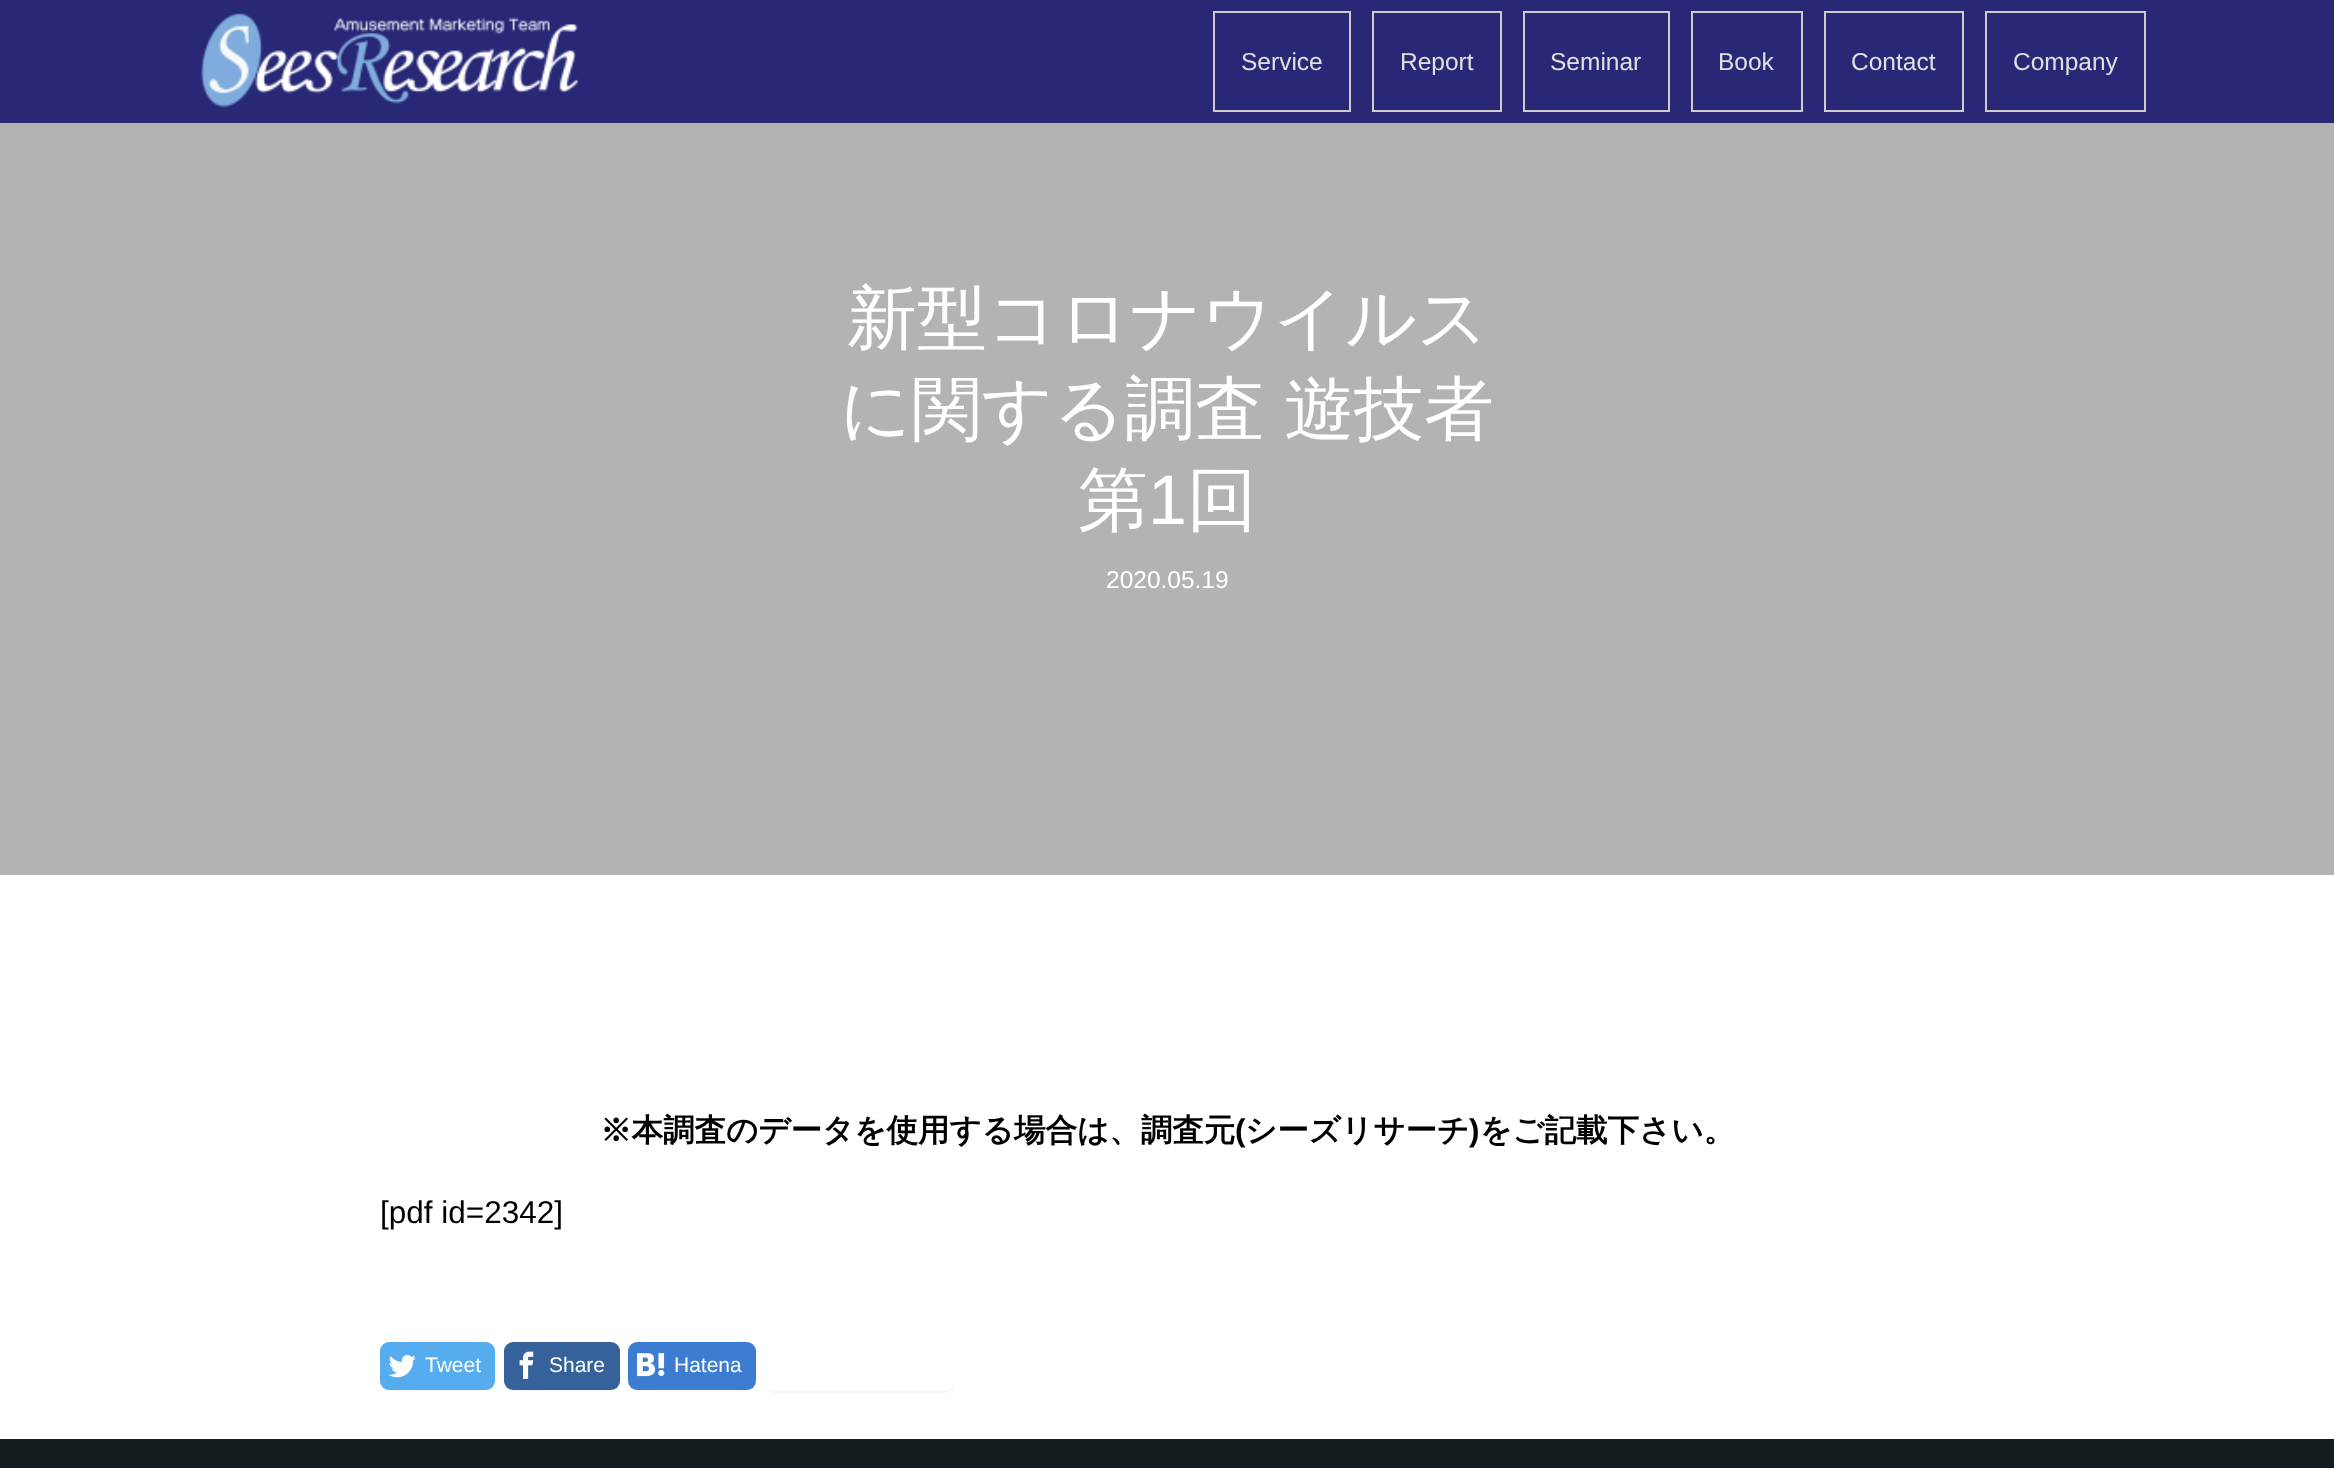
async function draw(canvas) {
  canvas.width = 2334
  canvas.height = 1468
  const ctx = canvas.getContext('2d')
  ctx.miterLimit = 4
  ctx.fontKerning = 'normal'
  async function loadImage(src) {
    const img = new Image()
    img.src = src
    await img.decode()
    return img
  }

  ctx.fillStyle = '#fff'
  ctx.fillRect(0, 0, 2334, 1468)
  ctx.fillStyle = '#282877'
  ctx.fillRect(0, 0, 2334, 123)
  ctx.drawImage(await loadImage('image0.png'), 201, 13, 377, 95)
  ctx.strokeStyle = '#ccc'
  ctx.lineWidth = 2
  ctx.strokeRect(1214, 12, 136, 99)
  ctx.font = '24.5px Liberation Sans'
  ctx.fillStyle = '#e0e0e0'
  ctx.fillText('Service', 1241, 70)
  ctx.strokeRect(1373, 12, 128, 99)
  ctx.fillText('Report', 1400, 70)
  ctx.strokeRect(1524, 12, 145, 99)
  ctx.fillText('Seminar', 1550, 70)
  ctx.strokeRect(1692, 12, 110, 99)
  ctx.fillText('Book', 1718, 70)
  ctx.strokeRect(1825, 12, 138, 99)
  ctx.fillText('Contact', 1851, 70)
  ctx.strokeRect(1986, 12, 159, 99)
  ctx.fillText('Company', 2013, 70)
  ctx.fillStyle = '#b3b3b3'
  ctx.fillRect(0, 123, 2334, 752)
  ctx.font = '500 70px WenQuanYi Zen Hei'
  ctx.fillStyle = '#fff'
  ctx.fillText('新型コロナウイルス', 847, 342)
  ctx.wordSpacing = '-2px'
  ctx.fillText('に関する調査 遊技者', 840, 433)
  ctx.wordSpacing = '0px'
  ctx.fillText('第', 1078, 524)
  ctx.font = '70px Liberation Sans'
  ctx.fillText('1', 1148, 524)
  ctx.font = '500 70px WenQuanYi Zen Hei'
  ctx.fillText('回', 1187, 524)
  ctx.font = '24.5px Liberation Sans'
  ctx.fillText('2020.05.19', 1106, 588)
  ctx.font = 'bold 31.5px WenQuanYi Zen Hei'
  ctx.fillStyle = '#000'
  ctx.fillText('※本調査のデータを使用する場合は、調査元', 600, 1141)
  ctx.font = 'bold 31.5px Liberation Sans'
  ctx.fillText('(', 1235, 1141)
  ctx.font = 'bold 31.5px WenQuanYi Zen Hei'
  ctx.fillText('シーズリサーチ', 1245, 1141)
  ctx.font = 'bold 31.5px Liberation Sans'
  ctx.fillText(')', 1469, 1141)
  ctx.font = 'bold 31.5px WenQuanYi Zen Hei'
  ctx.fillText('をご記載下さい。', 1480, 1141)
  ctx.font = '31.5px Liberation Sans'
  ctx.fillText('[pdf id=2342]', 380, 1223)
  ctx.fillStyle = '#f7f7f7'
  ctx.beginPath()
  ctx.moveTo(380, 1383)
  ctx.bezierCurveTo(381, 1388, 384, 1391, 389, 1391)
  ctx.lineTo(486, 1391)
  ctx.bezierCurveTo(491, 1391, 494, 1388, 495, 1383)
  ctx.bezierCurveTo(494, 1387, 491, 1390, 486, 1390)
  ctx.lineTo(388, 1390)
  ctx.bezierCurveTo(384, 1390, 381, 1387, 380, 1383)
  ctx.closePath()
  ctx.fill()
  ctx.fillStyle = '#55acee'
  ctx.beginPath()
  ctx.roundRect(380, 1342, 115, 48, 9)
  ctx.fill()
  ctx.drawImage(await loadImage('image1.png'), 388, 1355, 28, 23)
  ctx.font = '21px Liberation Sans'
  ctx.fillStyle = '#fff'
  ctx.fillText('Tweet', 425, 1372)
  ctx.fillStyle = '#f7f7f7'
  ctx.beginPath()
  ctx.moveTo(504, 1381)
  ctx.lineTo(504, 1382)
  ctx.bezierCurveTo(504, 1387, 508, 1391, 513, 1391)
  ctx.lineTo(611, 1391)
  ctx.bezierCurveTo(616, 1391, 620, 1387, 620, 1382)
  ctx.lineTo(620, 1353)
  ctx.lineTo(619, 1350)
  ctx.lineTo(620, 1381)
  ctx.bezierCurveTo(620, 1386, 616, 1390, 611, 1390)
  ctx.lineTo(513, 1390)
  ctx.bezierCurveTo(508, 1390, 504, 1386, 504, 1381)
  ctx.closePath()
  ctx.fill()
  ctx.fillStyle = '#35629a'
  ctx.beginPath()
  ctx.roundRect(504, 1342, 116, 48, 9)
  ctx.fill()
  ctx.drawImage(await loadImage('image2.png'), 519, 1351, 15, 28)
  ctx.fillStyle = '#fff'
  ctx.fillText('Share', 549, 1372)
  ctx.fillStyle = '#f7f7f7'
  ctx.beginPath()
  ctx.moveTo(628, 1351)
  ctx.lineTo(628, 1372)
  ctx.bezierCurveTo(628, 1379, 626, 1391, 637, 1391)
  ctx.lineTo(729, 1391)
  ctx.bezierCurveTo(738, 1391, 756, 1395, 756, 1381)
  ctx.bezierCurveTo(756, 1386, 752, 1390, 747, 1390)
  ctx.lineTo(637, 1390)
  ctx.bezierCurveTo(632, 1390, 628, 1386, 628, 1381)
  ctx.closePath()
  ctx.fill()
  ctx.fillStyle = '#3c7dd1'
  ctx.beginPath()
  ctx.roundRect(628, 1342, 128, 48, 9)
  ctx.fill()
  ctx.drawImage(await loadImage('image3.png'), 637, 1353, 28, 24)
  ctx.fillStyle = '#fff'
  ctx.fillText('Hatena', 674, 1372)
  ctx.fillStyle = '#f7f7f7'
  ctx.beginPath()
  ctx.moveTo(765, 1385)
  ctx.bezierCurveTo(765, 1389, 769, 1393, 774, 1393)
  ctx.lineTo(945, 1393)
  ctx.bezierCurveTo(950, 1393, 954, 1389, 954, 1384)
  ctx.lineTo(954, 1351)
  ctx.lineTo(954, 1382)
  ctx.bezierCurveTo(954, 1387, 950, 1391, 945, 1391)
  ctx.lineTo(774, 1391)
  ctx.bezierCurveTo(769, 1391, 766, 1388, 765, 1385)
  ctx.closePath()
  ctx.fill()
  ctx.fillStyle = '#121d1f'
  ctx.fillRect(0, 1439, 2334, 29)
}

draw(document.querySelector('canvas'))
